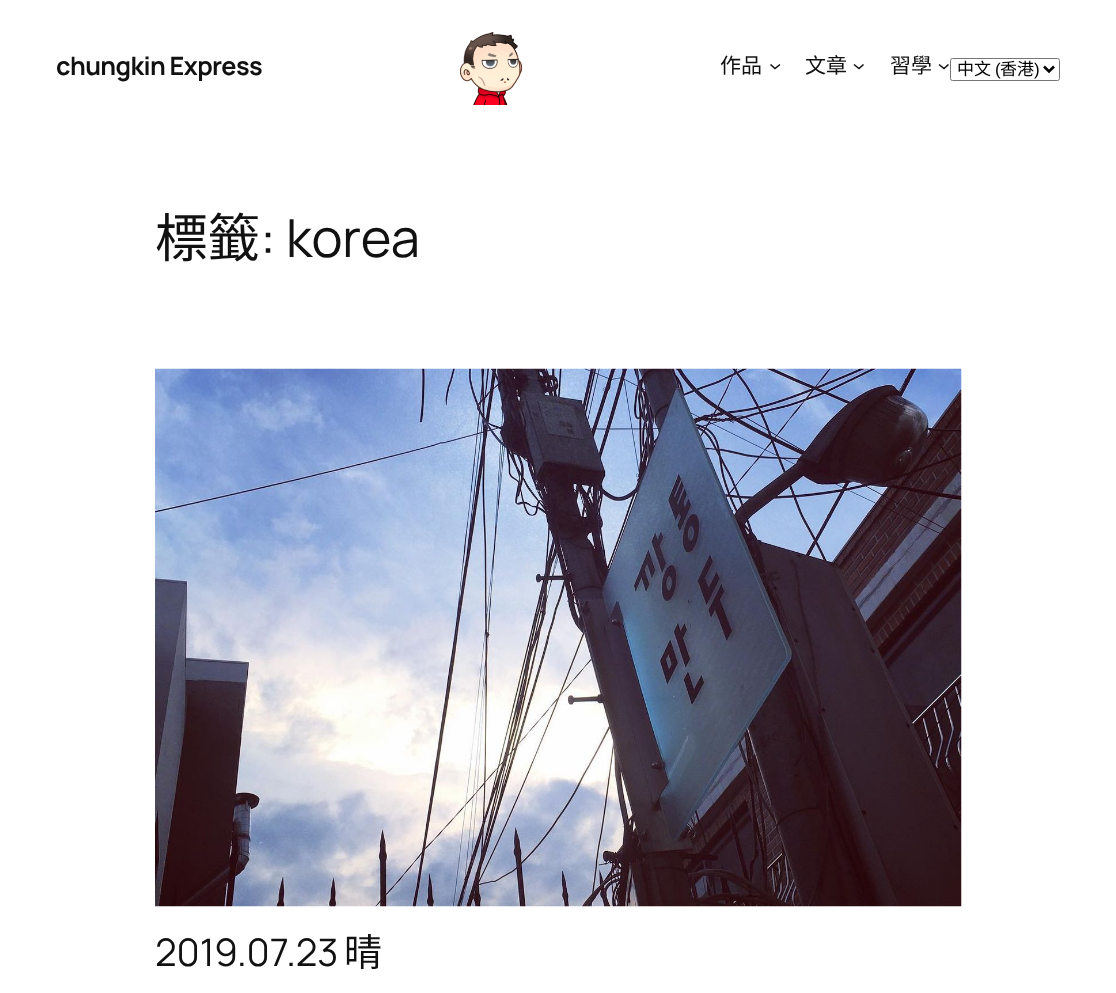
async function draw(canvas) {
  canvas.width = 1116
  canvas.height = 993
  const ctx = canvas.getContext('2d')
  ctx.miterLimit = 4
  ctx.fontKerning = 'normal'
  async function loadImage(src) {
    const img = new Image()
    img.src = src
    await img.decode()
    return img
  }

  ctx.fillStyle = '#fff'
  ctx.fillRect(0, 0, 1116, 993)
  ctx.letterSpacing = '-0.6px'
  ctx.font = 'bold 25.25px Manrope'
  ctx.fillStyle = '#111'
  ctx.fillText('chungkin Express', 56, 75)
  ctx.drawImage(await loadImage('image0.png'), 460, 32, 63, 73)
  ctx.letterSpacing = '-0.1px'
  ctx.font = '21px Noto Sans CJK HK'
  ctx.fillText('作品', 720, 73)
  ctx.beginPath()
  ctx.moveTo(770.5, 64.5)
  ctx.lineTo(775, 68.5)
  ctx.lineTo(780, 64.5)
  ctx.strokeStyle = '#111'
  ctx.lineWidth = 1.6
  ctx.stroke()
  ctx.fillText('文章', 805, 73)
  ctx.beginPath()
  ctx.moveTo(854, 64.5)
  ctx.lineTo(859, 68.5)
  ctx.lineTo(863.5, 64.5)
  ctx.stroke()
  ctx.fillText('習學', 890, 73)
  ctx.beginPath()
  ctx.moveTo(939, 64.5)
  ctx.lineTo(944, 68.5)
  ctx.lineTo(948.5, 64.5)
  ctx.stroke()
  ctx.beginPath()
  ctx.roundRect(950.5, 58.5, 109, 22, 2)
  ctx.strokeStyle = '#767676'
  ctx.lineWidth = 1
  ctx.stroke()
  ctx.beginPath()
  ctx.moveTo(1044, 66.5)
  ctx.lineTo(1049, 71.5)
  ctx.lineTo(1054, 66.5)
  ctx.strokeStyle = '#000'
  ctx.lineWidth = 2.5
  ctx.stroke()
  ctx.letterSpacing = '0px'
  ctx.font = '17px Noto Sans CJK HK'
  ctx.fillStyle = '#000'
  ctx.fillText('中文', 957, 75)
  ctx.font = '17px Liberation Sans'
  ctx.fillText('(', 995, 75)
  ctx.font = '17px Noto Sans CJK HK'
  ctx.fillText('香港', 1000, 75)
  ctx.font = '17px Liberation Sans'
  ctx.fillText(')', 1034, 75)
  ctx.letterSpacing = '-0.1px'
  ctx.font = '52.5px Noto Sans CJK HK'
  ctx.fillStyle = '#111'
  ctx.fillText('標籤', 155, 257)
  ctx.font = '52.5px Manrope'
  ctx.fillText(': korea', 260, 257)
  ctx.drawImage(await loadImage('image1.png'), 155, 368, 807, 539)
  ctx.font = '38px Manrope'
  ctx.fillText('2019.07.23', 155, 966)
  ctx.font = '38px Noto Sans CJK HK'
  ctx.fillText('晴', 344, 966)
}

draw(document.querySelector('canvas'))
